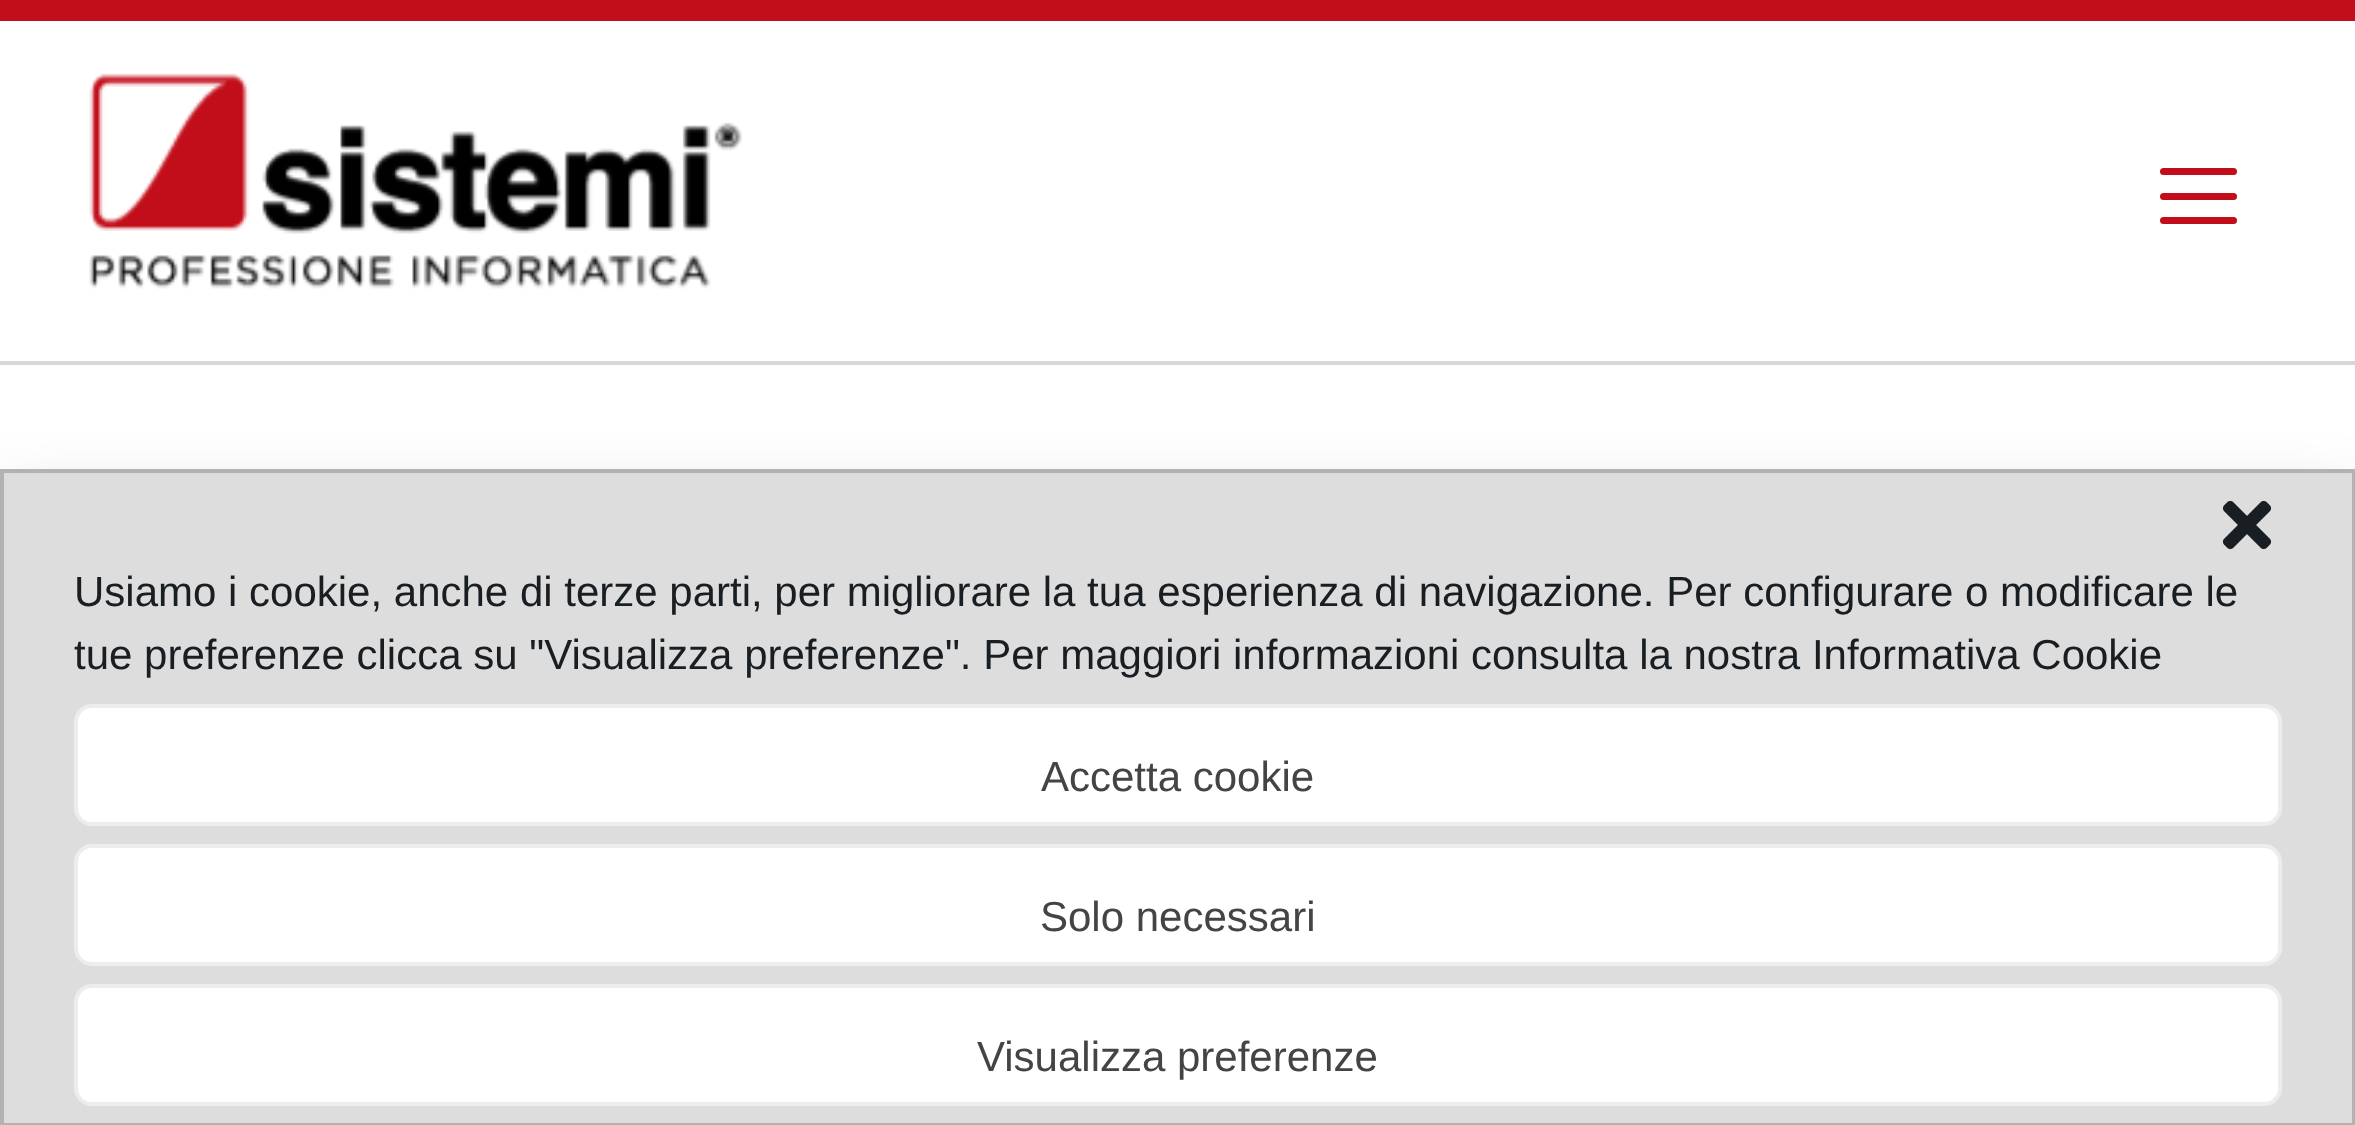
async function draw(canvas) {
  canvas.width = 2355
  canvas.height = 1125
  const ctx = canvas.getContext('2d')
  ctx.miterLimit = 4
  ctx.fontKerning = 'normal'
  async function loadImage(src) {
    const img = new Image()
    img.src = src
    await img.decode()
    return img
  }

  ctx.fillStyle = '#fff'
  ctx.fillRect(0, 0, 2355, 1125)
  ctx.fillStyle = '#c20e1a'
  ctx.fillRect(0, 0, 2355, 21)
  ctx.fillStyle = '#d7d7d7'
  ctx.fillRect(0, 361, 2355, 4)
  ctx.drawImage(await loadImage('image0.png'), 89, 73, 653, 216)
  ctx.fillStyle = '#c20e1a'
  ctx.beginPath()
  ctx.roundRect(2160, 193, 77, 7, 3.5)
  ctx.fill()
  ctx.beginPath()
  ctx.roundRect(2160, 168, 77, 7, 3.5)
  ctx.fill()
  ctx.beginPath()
  ctx.roundRect(2160, 217, 77, 7, 3.5)
  ctx.fill()
  ctx.fillStyle = '#00000030'
  ctx.filter = 'blur(35px)'
  ctx.beginPath()
  ctx.rect(0, 504, 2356, 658)
  ctx.fill()
  ctx.filter = 'none'
  ctx.fillStyle = '#ddd'
  ctx.beginPath()
  ctx.rect(2, 471, 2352, 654)
  ctx.fill()
  ctx.strokeStyle = '#b2b2b2'
  ctx.lineWidth = 4
  ctx.stroke()
  ctx.drawImage(await loadImage('image1.png'), 2222, 500, 50, 50)
  ctx.font = '42px Liberation Sans'
  ctx.fillStyle = '#191e23'
  ctx.fillText('Usiamo i cookie, anche di terze parti, per migliorare la tua esperienza di navigazione. Per configurare o modificare le', 74, 606)
  ctx.fillText('tue preferenze clicca su "Visualizza preferenze". Per maggiori informazioni consulta la nostra Informativa Cookie', 74, 669)
  ctx.fillStyle = '#fff'
  ctx.beginPath()
  ctx.roundRect(76, 706, 2204, 118, 16)
  ctx.fill()
  ctx.strokeStyle = '#ededed'
  ctx.stroke()
  ctx.fillStyle = '#444'
  ctx.fillText('Accetta cookie', 1041, 791)
  ctx.fillStyle = '#fff'
  ctx.beginPath()
  ctx.roundRect(76, 846, 2204, 118, 16)
  ctx.fill()
  ctx.stroke()
  ctx.fillStyle = '#444'
  ctx.fillText('Solo necessari', 1040, 931)
  ctx.fillStyle = '#fff'
  ctx.beginPath()
  ctx.roundRect(76, 986, 2204, 118, 16)
  ctx.fill()
  ctx.stroke()
  ctx.fillStyle = '#444'
  ctx.fillText('Visualizza preferenze', 977, 1071)
}

draw(document.querySelector('canvas'))
